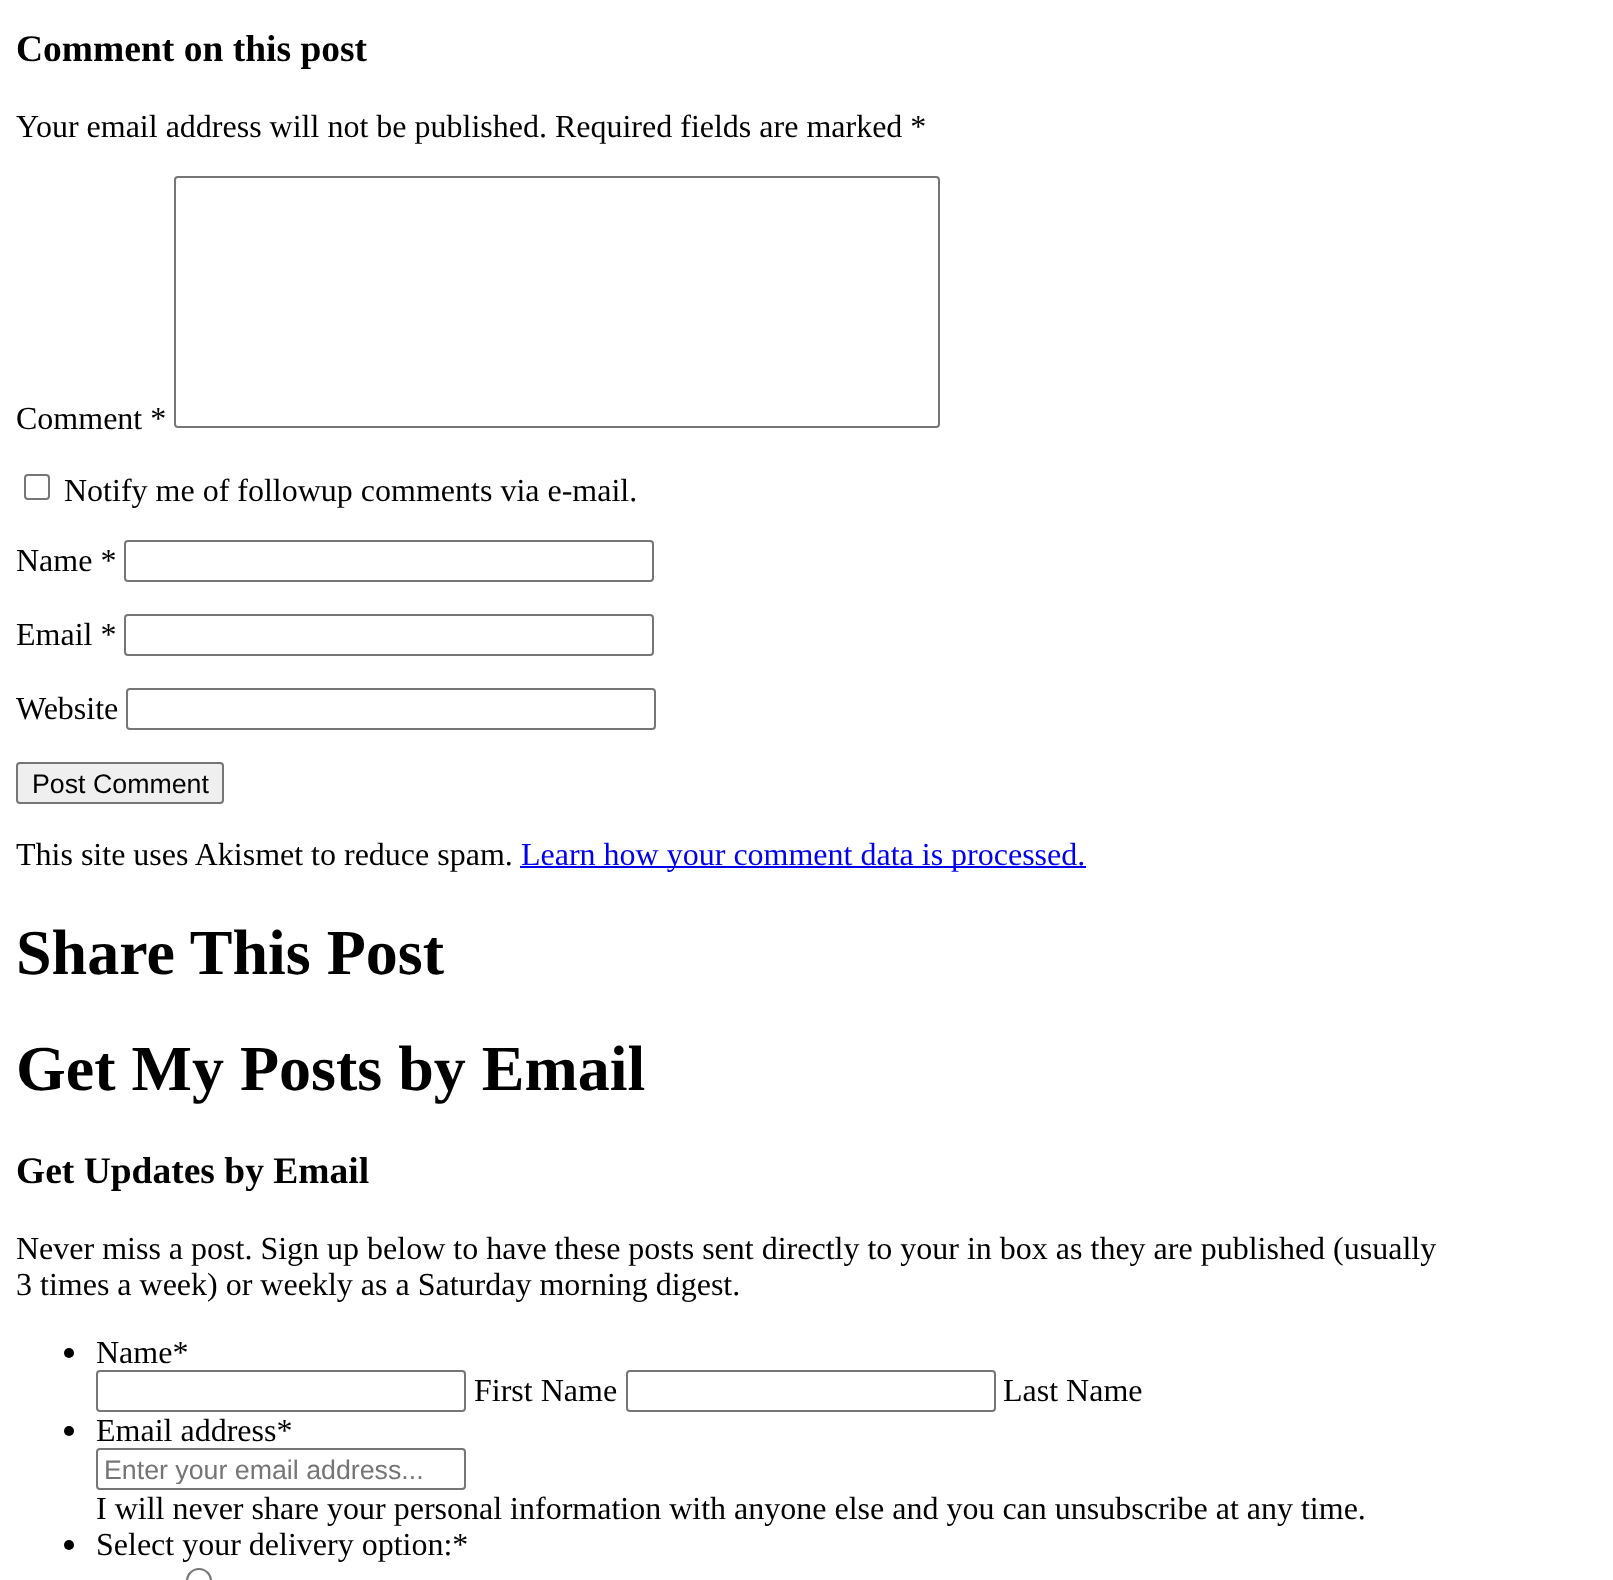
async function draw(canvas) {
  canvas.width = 1613
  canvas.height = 1580
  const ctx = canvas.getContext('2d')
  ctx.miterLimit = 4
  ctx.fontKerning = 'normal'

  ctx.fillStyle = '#fff'
  ctx.fillRect(0, 0, 1613, 1580)
  ctx.font = 'bold 37.5px Liberation Serif'
  ctx.fillStyle = '#000'
  ctx.fillText('Comment on this post', 16, 61)
  ctx.font = '32px Liberation Serif'
  ctx.fillText('Your email address will not be published. Required fields are marked *', 16, 137)
  ctx.fillText('Comment *', 16, 429)
  ctx.beginPath()
  ctx.roundRect(175, 177, 764, 250, 3)
  ctx.strokeStyle = '#767676'
  ctx.lineWidth = 2
  ctx.stroke()
  ctx.beginPath()
  ctx.roundRect(25, 475, 24, 24, 3)
  ctx.stroke()
  ctx.fillText('Notify me of followup comments via e-mail.', 64, 501)
  ctx.fillText('Name *', 16, 571)
  ctx.beginPath()
  ctx.roundRect(125, 541, 528, 40, 3)
  ctx.stroke()
  ctx.fillText('Email *', 16, 645)
  ctx.beginPath()
  ctx.roundRect(125, 615, 528, 40, 3)
  ctx.stroke()
  ctx.fillText('Website', 16, 719)
  ctx.beginPath()
  ctx.roundRect(127, 689, 528, 40, 3)
  ctx.stroke()
  ctx.fillStyle = '#efefef'
  ctx.beginPath()
  ctx.roundRect(17, 763, 206, 40, 3)
  ctx.fill()
  ctx.stroke()
  ctx.font = '26.75px Liberation Sans'
  ctx.fillStyle = '#000'
  ctx.fillText('Post Comment', 32, 793)
  ctx.font = '32px Liberation Serif'
  ctx.fillText('This site uses Akismet to reduce spam.', 16, 865)
  ctx.fillStyle = '#00e'
  ctx.fillRect(520, 866, 566, 2)
  ctx.fillText('Learn how your comment data is processed.', 521, 865)
  ctx.font = 'bold 64px Liberation Serif'
  ctx.fillStyle = '#000'
  ctx.fillText('Share This Post', 16, 974)
  ctx.fillText('Get My Posts by Email', 16, 1090)
  ctx.font = 'bold 37.5px Liberation Serif'
  ctx.fillText('Get Updates by Email', 16, 1183)
  ctx.font = '32px Liberation Serif'
  ctx.fillText('Never miss a post. Sign up below to have these posts sent directly to your in box as they are published (usually', 16, 1259)
  ctx.fillText('3 times a week) or weekly as a Saturday morning digest.', 16, 1295)
  ctx.beginPath()
  ctx.arc(69, 1353, 5, 0, 2 * Math.PI)
  ctx.fill()
  ctx.fillText('Name*', 96, 1363)
  ctx.beginPath()
  ctx.roundRect(97, 1371, 368, 40, 3)
  ctx.stroke()
  ctx.fillText('First Name', 474, 1401)
  ctx.beginPath()
  ctx.roundRect(627, 1371, 368, 40, 3)
  ctx.stroke()
  ctx.fillText('Last Name', 1003, 1401)
  ctx.beginPath()
  ctx.arc(69, 1431, 5, 0, 2 * Math.PI)
  ctx.fill()
  ctx.fillText('Email address*', 96, 1441)
  ctx.beginPath()
  ctx.roundRect(97, 1449, 368, 40, 3)
  ctx.stroke()
  ctx.save()
  ctx.beginPath()
  ctx.rect(104, 1454, 354, 30)
  ctx.clip()
  ctx.font = '26.75px Liberation Sans'
  ctx.fillStyle = '#757575'
  ctx.fillText('Enter your email address...', 104, 1479)
  ctx.restore()
  ctx.fillText('I will never share your personal information with anyone else and you can unsubscribe at any time.', 96, 1519)
  ctx.beginPath()
  ctx.arc(69, 1545, 5, 0, 2 * Math.PI)
  ctx.fill()
  ctx.fillText('Select your delivery option:*', 96, 1555)
  ctx.beginPath()
  ctx.arc(199, 1581, 12, 0, 2 * Math.PI)
  ctx.stroke()
}

draw(document.querySelector('canvas'))
